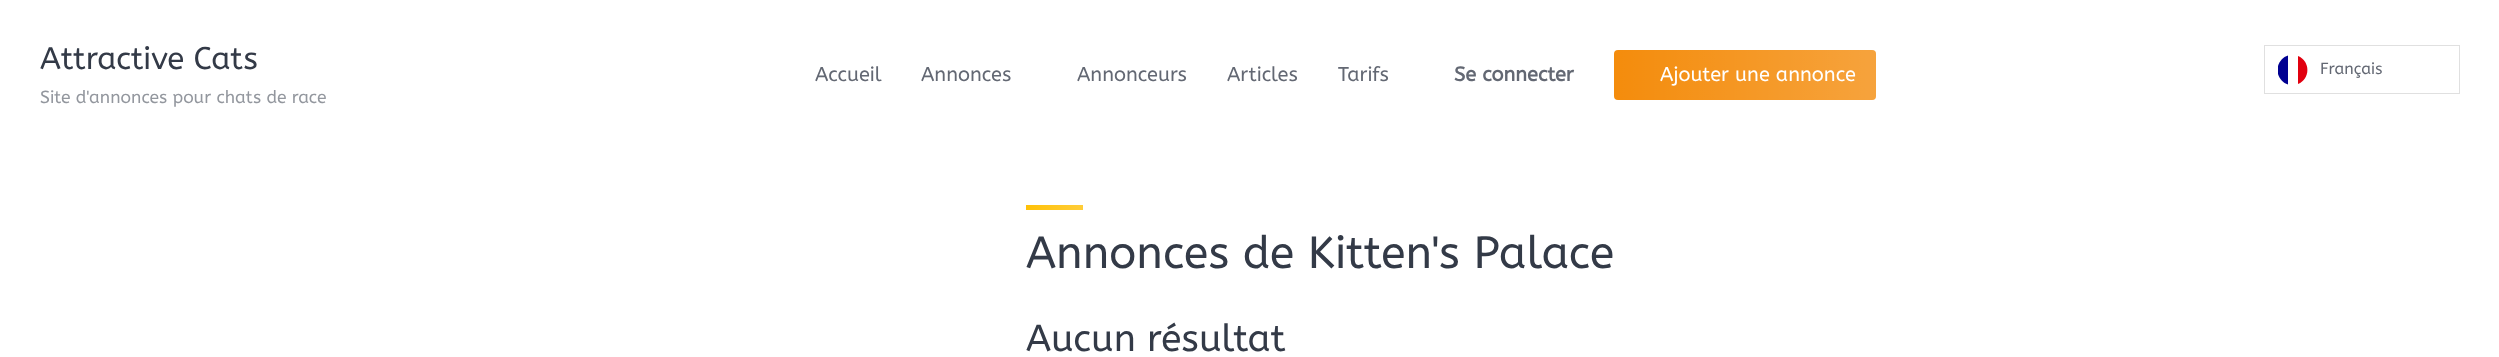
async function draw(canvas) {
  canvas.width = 2499
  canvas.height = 357
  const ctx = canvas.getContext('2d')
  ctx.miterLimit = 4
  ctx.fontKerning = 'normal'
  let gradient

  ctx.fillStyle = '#fff'
  ctx.fillRect(0, 0, 2499, 357)
  ctx.font = '31.25px ABeeZee'
  ctx.fillStyle = '#333a47'
  ctx.fillText('Attractive Cats', 40, 69)
  ctx.font = '17.5px ABeeZee'
  ctx.fillStyle = '#93979e'
  ctx.fillText('Site d\'annonces pour chats de race', 40, 103)
  ctx.font = '20px ABeeZee'
  ctx.fillStyle = '#636873'
  ctx.fillText('Accueil', 815, 81)
  ctx.fillText('Annonces', 921, 81)
  ctx.fillText('Annonceurs', 1077, 81)
  ctx.fillText('Articles', 1227, 81)
  ctx.fillText('Tarifs', 1338, 81)
  ctx.font = 'bold 20px ABeeZee'
  ctx.fillText('Se connecter', 1454, 81)
  ctx.fillStyle = '#f48c0c'
  ctx.beginPath()
  ctx.roundRect(1614, 50, 262, 50, 4)
  ctx.fill()
  gradient = ctx.createLinearGradient(1614, 75, 1876, 75)
  gradient.addColorStop(0, '#ffffff00')
  gradient.addColorStop(1, '#ffffff33')
  ctx.fillStyle = gradient
  ctx.beginPath()
  ctx.roundRect(1614, 50, 262, 50, 4)
  ctx.fill()
  ctx.font = '20px ABeeZee'
  ctx.fillStyle = '#fff'
  ctx.fillText('Ajouter une annonce', 1660, 81)
  ctx.strokeStyle = '#e0e0e0'
  ctx.strokeRect(2264.5, 45.5, 195, 48)
  ctx.fillStyle = '#000091'
  ctx.beginPath()
  ctx.moveTo(2278, 66)
  ctx.bezierCurveTo(2279.5, 61, 2283, 57, 2288, 55.5)
  ctx.lineTo(2288, 84.5)
  ctx.bezierCurveTo(2283, 83, 2279.5, 79, 2278, 74)
  ctx.closePath()
  ctx.fill()
  ctx.fillStyle = '#e1000f'
  ctx.beginPath()
  ctx.moveTo(2298, 56)
  ctx.bezierCurveTo(2310.5, 61, 2310.5, 79, 2298, 84)
  ctx.closePath()
  ctx.fill()
  ctx.font = '16px ABeeZee'
  ctx.fillStyle = '#636873'
  ctx.fillText('Français', 2320, 74)
  gradient = ctx.createLinearGradient(1026, 208, 1083, 208)
  gradient.addColorStop(0, '#ffc107')
  gradient.addColorStop(1, '#ffcd39')
  ctx.fillStyle = gradient
  ctx.fillRect(1026, 205, 57, 5)
  ctx.font = '45px ABeeZee'
  ctx.fillStyle = '#333a47'
  ctx.fillText('Annonces de Kitten\'s Palace', 1026, 268)
  ctx.font = '37.5px ABeeZee'
  ctx.fillText('Aucun résultat', 1026, 351)
}

draw(document.querySelector('canvas'))
